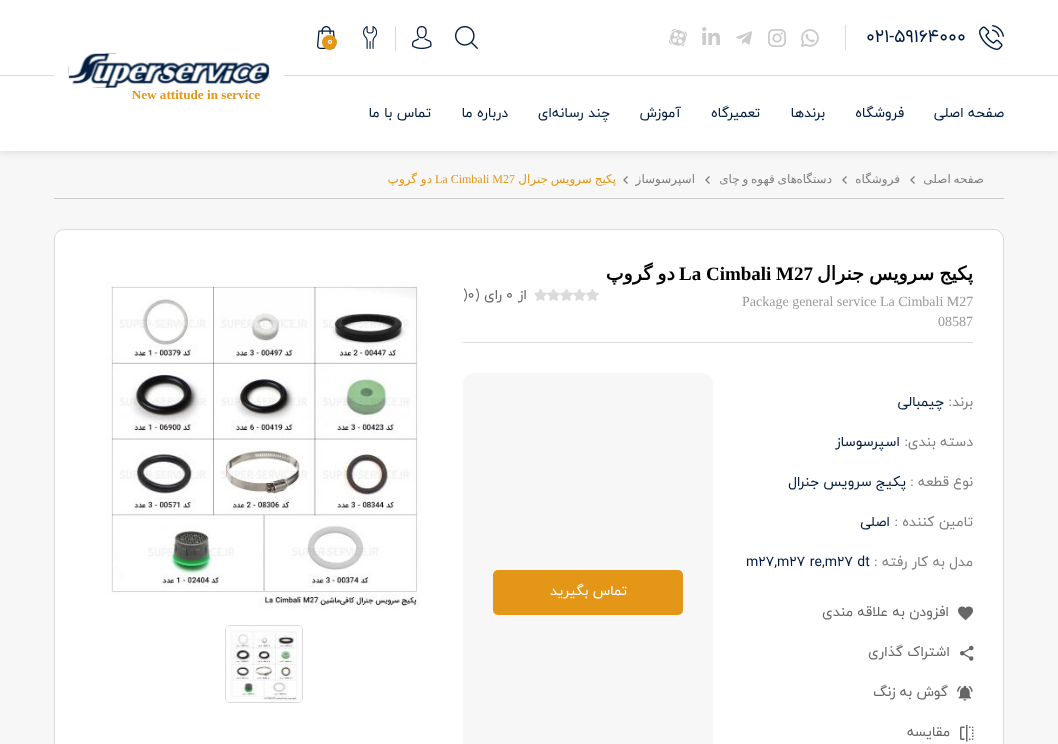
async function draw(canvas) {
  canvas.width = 1058
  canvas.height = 744
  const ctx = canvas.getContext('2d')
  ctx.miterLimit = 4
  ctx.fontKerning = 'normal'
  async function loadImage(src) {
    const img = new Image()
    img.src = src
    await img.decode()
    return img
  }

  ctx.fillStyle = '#f7f7f7'
  ctx.fillRect(0, 0, 1058, 744)
  ctx.fillStyle = '#00000029'
  ctx.filter = 'blur(5px)'
  ctx.beginPath()
  ctx.rect(0, 76, 1058, 75)
  ctx.fill()
  ctx.filter = 'none'
  ctx.fillStyle = '#fff'
  ctx.fillRect(0, 0, 1058, 75)
  ctx.fillStyle = '#d9d9d9'
  ctx.fillRect(0, 75, 1058, 1)
  ctx.fillRect(845, 25, 1, 25)
  ctx.drawImage(await loadImage('image0.png'), 979, 25, 25, 25)
  ctx.font = '18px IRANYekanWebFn'
  ctx.fillStyle = '#001c41'
  ctx.fillText('021-59164000', 866, 42)
  ctx.drawImage(await loadImage('image1.png'), 801, 29, 18, 18)
  ctx.drawImage(await loadImage('image2.png'), 768, 29, 18, 18)
  ctx.drawImage(await loadImage('image3.png'), 736, 31, 16, 14)
  ctx.drawImage(await loadImage('image4.png'), 702, 27, 18, 18)
  ctx.drawImage(await loadImage('image5.png'), 669, 29, 18, 17)
  ctx.drawImage(await loadImage('image6.png'), 455, 26, 23, 23)
  ctx.drawImage(await loadImage('image7.png'), 412, 26, 20, 23)
  ctx.fillStyle = '#d9d9d9'
  ctx.fillRect(395, 26, 1, 25)
  ctx.drawImage(await loadImage('image8.png'), 363, 26, 14, 23)
  ctx.drawImage(await loadImage('image9.png'), 317, 26, 18, 23)
  ctx.fillStyle = '#e49617'
  ctx.beginPath()
  ctx.arc(329.5, 42.5, 7.5, 0, 2 * Math.PI)
  ctx.fill()
  ctx.font = '12px IRANYekanWebFn'
  ctx.fillStyle = '#fff'
  ctx.fillText('0', 327, 45)
  ctx.fillRect(54, 75, 230, 1)
  ctx.fillRect(0, 76, 1058, 75)
  ctx.drawImage(await loadImage('image10.png'), 68, 53, 202, 46)
  ctx.direction = 'rtl'
  ctx.font = '14px IRANYekanWebFn'
  ctx.fillStyle = '#001c41'
  ctx.fillText('صفحه اصلی', 1004, 117)
  ctx.fillText('فروشگاه', 904, 117)
  ctx.fillText('برند‌ها', 825, 117)
  ctx.fillText('تعمیرگاه', 760, 117)
  ctx.fillText('آموزش', 681, 117)
  ctx.fillText('چند رسانه‌ای', 610, 117)
  ctx.fillText('درباره ما', 508, 117)
  ctx.fillText('تماس با ما', 431, 117)
  ctx.wordSpacing = '-1px'
  ctx.font = '12px DejaVu Sans'
  ctx.fillStyle = '#808080'
  ctx.fillText('صفحه اصلی', 984, 183)
  ctx.drawImage(await loadImage('image11.png'), 910, 176, 5, 8)
  ctx.wordSpacing = '0px'
  ctx.fillText('فروشگاه', 900, 183)
  ctx.drawImage(await loadImage('image11.png'), 842, 176, 5, 8)
  ctx.wordSpacing = '-1px'
  ctx.fillText('های قهوه و چای', 797, 183)
  ctx.wordSpacing = '0px'
  ctx.fillText('دستگاه', 832, 183)
  ctx.drawImage(await loadImage('image11.png'), 705, 176, 5, 8)
  ctx.fillText('اسپرسوساز', 695, 183)
  ctx.drawImage(await loadImage('image11.png'), 623, 176, 5, 8)
  ctx.wordSpacing = '-1px'
  ctx.fillStyle = '#e49617'
  ctx.fillText('پکیج سرویس جنرال', 616, 183)
  ctx.wordSpacing = '0px'
  ctx.direction = 'ltr'
  ctx.font = '12px Liberation Serif'
  ctx.fillText('La Cimbali M27', 435, 183)
  ctx.direction = 'rtl'
  ctx.font = '12px DejaVu Sans'
  ctx.fillText('دو گروپ', 432, 183)
  ctx.fillStyle = '#ccc'
  ctx.fillRect(54, 198, 950, 1)
  ctx.fillStyle = '#fff'
  ctx.beginPath()
  ctx.roundRect(54.5, 229.5, 949, 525, 9.5)
  ctx.fill()
  ctx.strokeStyle = '#d9d9d9'
  ctx.stroke()
  ctx.fillStyle = '#d9d9d9'
  ctx.fillRect(463, 342, 510, 1)
  ctx.wordSpacing = '-1px'
  ctx.font = 'bold 19px DejaVu Sans'
  ctx.fillStyle = '#000'
  ctx.fillText('پکیج سرویس جنرال', 973, 280)
  ctx.wordSpacing = '0px'
  ctx.direction = 'ltr'
  ctx.font = 'bold 19px Liberation Serif'
  ctx.fillText('La Cimbali M27', 679, 280)
  ctx.wordSpacing = '-1px'
  ctx.direction = 'rtl'
  ctx.font = 'bold 19px DejaVu Sans'
  ctx.fillText('دو گروپ', 675, 280)
  ctx.wordSpacing = '0px'
  ctx.direction = 'ltr'
  ctx.font = '14px Liberation Serif'
  ctx.fillStyle = '#999'
  ctx.fillText('Package general service La Cimbali M27', 742, 306)
  ctx.fillText('08587', 938, 326)
  ctx.drawImage(await loadImage('image12.png'), 586, 288, 13, 13)
  ctx.drawImage(await loadImage('image12.png'), 573, 288, 13, 13)
  ctx.drawImage(await loadImage('image12.png'), 560, 288, 13, 13)
  ctx.drawImage(await loadImage('image12.png'), 547, 288, 13, 13)
  ctx.drawImage(await loadImage('image12.png'), 534, 288, 13, 13)
  ctx.direction = 'rtl'
  ctx.font = '14px IRANYekanWebFn'
  ctx.fillStyle = '#666'
  ctx.fillText('از', 527, 299)
  ctx.direction = 'ltr'
  ctx.fillText('0', 506, 299)
  ctx.direction = 'rtl'
  ctx.fillText('رای (', 502, 299)
  ctx.direction = 'ltr'
  ctx.fillText(')0', 463, 299)
  ctx.direction = 'rtl'
  ctx.fillStyle = '#808080'
  ctx.fillText('برند:', 973, 406)
  ctx.fillStyle = '#001c41'
  ctx.fillText('چیمبالی', 944, 406)
  ctx.fillStyle = '#808080'
  ctx.fillText('دسته بندی:', 973, 446)
  ctx.fillStyle = '#001c41'
  ctx.fillText('اسپرسوساز', 900, 446)
  ctx.fillStyle = '#808080'
  ctx.fillText('نوع قطعه :', 973, 486)
  ctx.fillStyle = '#001c41'
  ctx.fillText('پکیج سرویس جنرال', 906, 486)
  ctx.fillStyle = '#808080'
  ctx.fillText('تامین کننده :', 973, 526)
  ctx.fillStyle = '#001c41'
  ctx.fillText('اصلی', 890, 526)
  ctx.fillStyle = '#808080'
  ctx.fillText('مدل به کار رفته :', 973, 566)
  ctx.direction = 'ltr'
  ctx.fillStyle = '#001c41'
  ctx.fillText('m27,m27 re,m27 dt', 746, 566)
  ctx.drawImage(await loadImage('image13.png'), 958, 606, 15, 15)
  ctx.direction = 'rtl'
  ctx.fillStyle = '#666'
  ctx.fillText('افزودن به علاقه مندی', 949, 616)
  ctx.drawImage(await loadImage('image14.png'), 960, 645, 14, 16)
  ctx.fillText('اشتراک گذاری', 950, 656)
  ctx.drawImage(await loadImage('image15.png'), 957, 685, 16, 16)
  ctx.fillText('گوش به زنگ', 948, 696)
  ctx.drawImage(await loadImage('image16.png'), 960, 725, 14, 17)
  ctx.fillText('مقایسه', 950, 736)
  ctx.fillStyle = '#f7f7f7'
  ctx.beginPath()
  ctx.roundRect(463, 373, 250, 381, 10)
  ctx.fill()
  ctx.fillStyle = '#e49617'
  ctx.beginPath()
  ctx.roundRect(493, 570, 190, 45, 5)
  ctx.fill()
  ctx.fillStyle = '#fff'
  ctx.fillText('تماس بگیرید', 627, 595)
  ctx.drawImage(await loadImage('image17.png'), 106, 281, 314, 328)
  ctx.beginPath()
  ctx.roundRect(225.5, 625.5, 77, 77, 4.5)
  ctx.stroke()
  ctx.drawImage(await loadImage('image18.png'), 226, 626, 76, 76)
}

draw(document.querySelector('canvas'))
